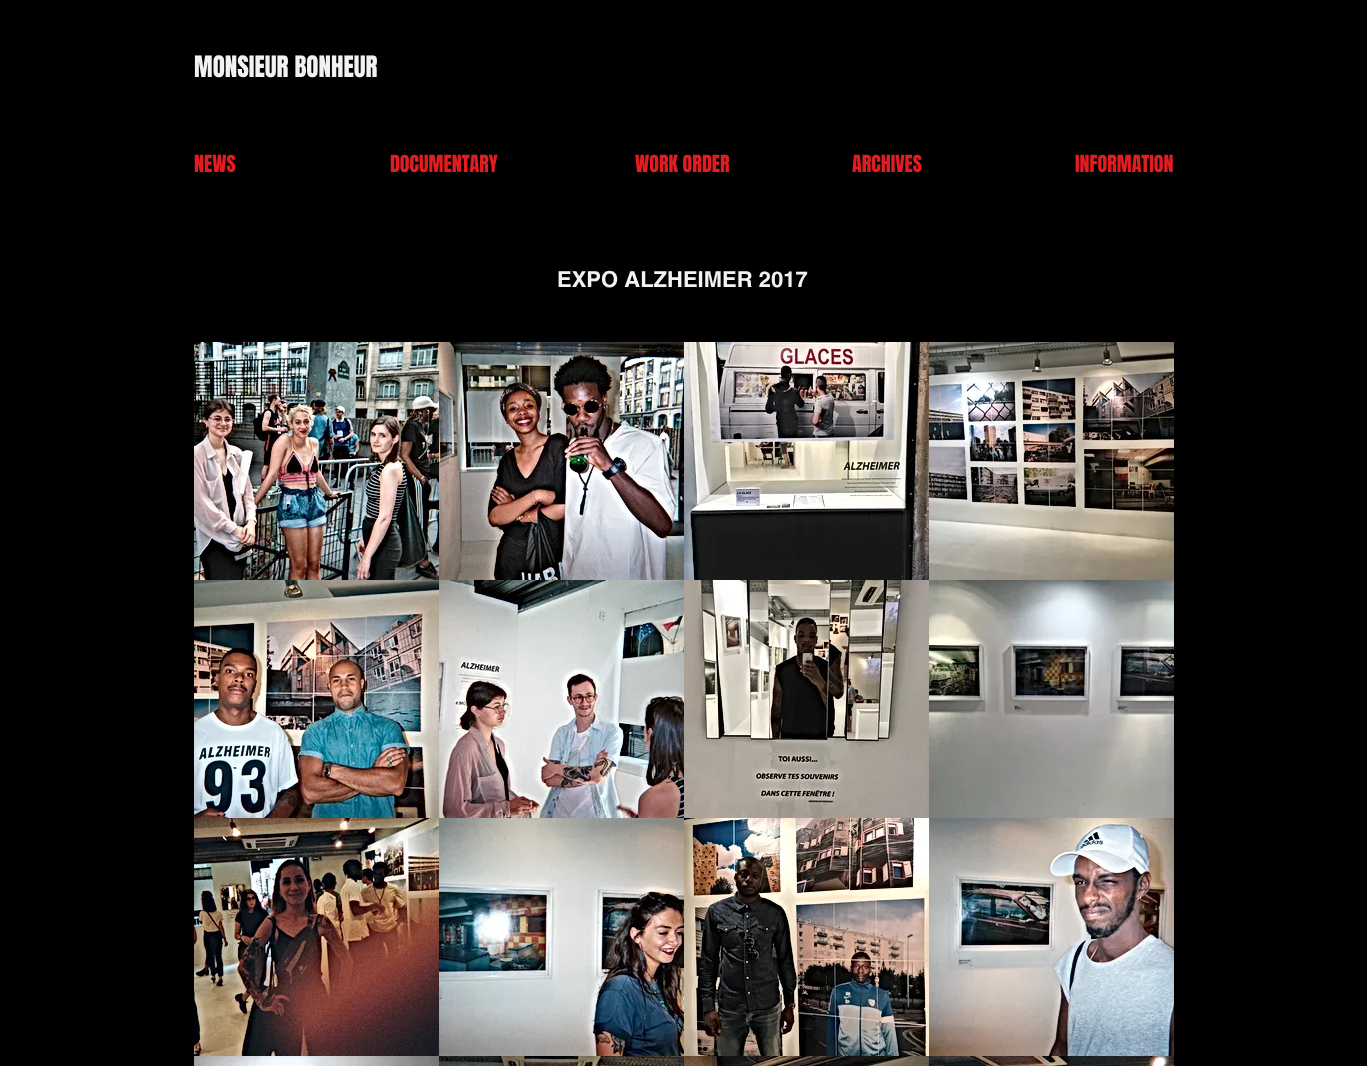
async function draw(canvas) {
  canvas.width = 1367
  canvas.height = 1066
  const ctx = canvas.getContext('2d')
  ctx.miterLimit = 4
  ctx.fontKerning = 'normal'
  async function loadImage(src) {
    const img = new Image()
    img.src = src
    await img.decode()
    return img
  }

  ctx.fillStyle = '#000'
  ctx.fillRect(0, 0, 1367, 1066)
  ctx.font = '25px Anton'
  ctx.fillStyle = '#f2f2f2'
  ctx.fillText('MONSIEUR BONHEUR', 194, 77)
  ctx.font = '20px Anton'
  ctx.fillStyle = '#e21c21'
  ctx.fillText('NEWS', 194, 172)
  ctx.fillText('DOCUMENTARY', 390, 172)
  ctx.fillText('WORK ORDER', 635, 172)
  ctx.fillText('ARCHIVES', 852, 172)
  ctx.fillText('INFORMATION', 1075, 172)
  ctx.font = 'bold 22px helvetica'
  ctx.fillStyle = '#f2f2f2'
  ctx.fillText('EXPO ALZHEIMER 2017', 557, 287)
  ctx.drawImage(await loadImage('image0.png'), 194, 342, 245, 238)
  ctx.drawImage(await loadImage('image1.png'), 439, 342, 245, 238)
  ctx.drawImage(await loadImage('image2.png'), 684, 342, 245, 238)
  ctx.drawImage(await loadImage('image3.png'), 929, 342, 245, 238)
  ctx.drawImage(await loadImage('image4.png'), 194, 580, 245, 238)
  ctx.drawImage(await loadImage('image5.png'), 439, 580, 245, 238)
  ctx.drawImage(await loadImage('image6.png'), 684, 580, 245, 238)
  ctx.drawImage(await loadImage('image7.png'), 929, 580, 245, 238)
  ctx.drawImage(await loadImage('image8.png'), 194, 818, 245, 238)
  ctx.drawImage(await loadImage('image9.png'), 439, 818, 245, 238)
  ctx.drawImage(await loadImage('image10.png'), 684, 818, 245, 238)
  ctx.drawImage(await loadImage('image11.png'), 929, 818, 245, 238)
  ctx.drawImage(await loadImage('image12.png'), 194, 1056, 245, 10)
  ctx.drawImage(await loadImage('image13.png'), 439, 1056, 245, 10)
  ctx.drawImage(await loadImage('image14.png'), 684, 1056, 245, 10)
  ctx.drawImage(await loadImage('image15.png'), 929, 1056, 245, 10)
}

draw(document.querySelector('canvas'))
